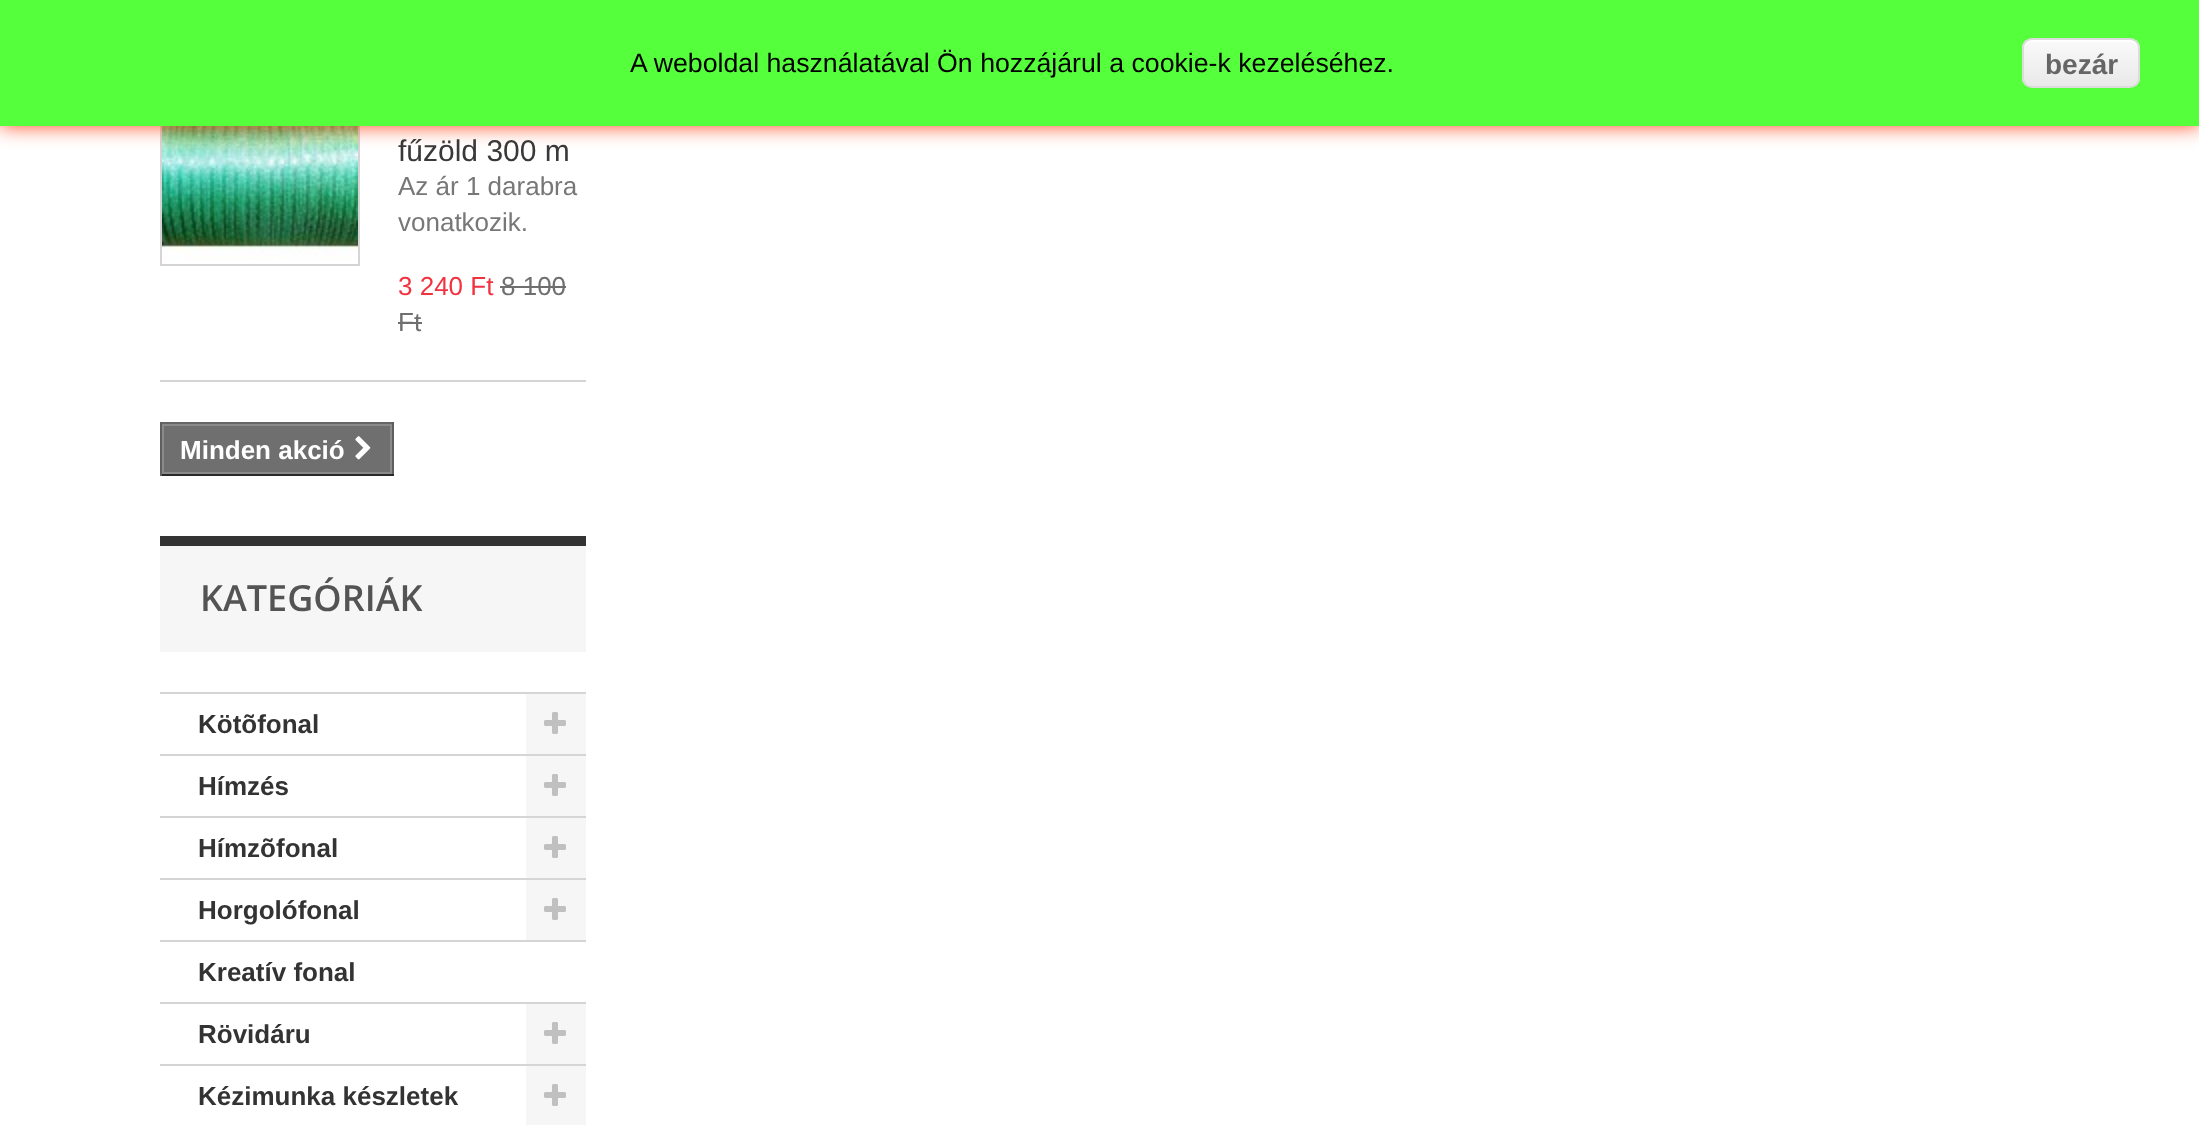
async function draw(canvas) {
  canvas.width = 2199
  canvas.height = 1125
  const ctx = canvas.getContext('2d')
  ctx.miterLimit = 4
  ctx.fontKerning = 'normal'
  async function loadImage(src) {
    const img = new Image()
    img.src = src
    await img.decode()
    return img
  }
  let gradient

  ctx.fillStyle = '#fff'
  ctx.fillRect(0, 0, 2199, 1125)
  ctx.strokeStyle = '#d6d4d4'
  ctx.lineWidth = 2
  ctx.strokeRect(161, 67, 198, 198)
  ctx.drawImage(await loadImage('image0.png'), 162, 126, 196, 134)
  ctx.fillStyle = '#ff491c'
  ctx.filter = 'blur(10px)'
  ctx.beginPath()
  ctx.rect(0, 0, 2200, 126)
  ctx.fill()
  ctx.filter = 'none'
  ctx.fillStyle = '#55ff3b'
  ctx.fillRect(0, 0, 2199, 126)
  ctx.font = '26.7px Liberation Sans'
  ctx.fillStyle = '#000'
  ctx.fillText('A weboldal használatával Ön hozzájárul a cookie-k kezeléséhez.', 630, 72)
  ctx.save()
  ctx.beginPath()
  ctx.roundRect(2022, 38, 118, 50, 10)
  ctx.clip()
  gradient = ctx.createLinearGradient(2024, 40, 2024, 86)
  gradient.addColorStop(0.05, '#f9f9f9')
  gradient.addColorStop(1, '#e9e9e9')
  ctx.fillStyle = gradient
  ctx.fillRect(2022, 40, 118, 46)
  ctx.restore()
  ctx.fillStyle = '#fff'
  ctx.beginPath()
  ctx.moveTo(2032, 42)
  ctx.lineTo(2130, 42)
  ctx.bezierCurveTo(2134, 42, 2138, 46, 2138, 50)
  ctx.bezierCurveTo(2138, 36, 2124, 40, 2114, 40)
  ctx.lineTo(2048, 40)
  ctx.bezierCurveTo(2038, 40, 2024, 36, 2024, 50)
  ctx.bezierCurveTo(2024, 46, 2028, 42, 2032, 42)
  ctx.closePath()
  ctx.fill()
  ctx.beginPath()
  ctx.roundRect(2023, 39, 116, 48, 9)
  ctx.strokeStyle = '#dcdcdc'
  ctx.stroke()
  ctx.font = 'bold 28px Liberation Sans'
  ctx.fillStyle = '#666'
  ctx.fillText('bezár', 2045, 74)
  ctx.fillStyle = '#d6d4d4'
  ctx.fillRect(160, 380, 426, 2)
  ctx.font = '30px Liberation Sans'
  ctx.fillStyle = '#3a3939'
  ctx.fillText('fűzöld 300 m', 398, 161)
  ctx.font = '26px Liberation Sans'
  ctx.fillStyle = '#777'
  ctx.fillText('Az ár 1 darabra', 398, 195)
  ctx.fillText('vonatkozik.', 398, 231)
  ctx.fillStyle = '#f13340'
  ctx.fillText('3 240 Ft', 398, 295)
  ctx.fillStyle = '#6f6f6f'
  ctx.fillText('8 100', 501, 295)
  ctx.fillRect(500, 286, 66, 2)
  ctx.fillText('Ft', 398, 331)
  ctx.fillRect(398, 322, 24, 2)
  ctx.fillStyle = '#666'
  ctx.fillRect(160, 422, 234, 2)
  ctx.fillStyle = '#5f5f5f'
  ctx.fillRect(392, 422, 2, 54)
  ctx.fillStyle = '#292929'
  ctx.fillRect(160, 474, 234, 2)
  ctx.fillStyle = '#5f5f5f'
  ctx.fillRect(160, 422, 2, 54)
  ctx.fillStyle = '#6f6f6f'
  ctx.beginPath()
  ctx.rect(163, 425, 228, 48)
  ctx.fill()
  ctx.strokeStyle = '#8b8a8a'
  ctx.stroke()
  ctx.font = 'bold 26px Liberation Sans'
  ctx.fillStyle = '#fff'
  ctx.fillText('Minden akció', 180, 459)
  ctx.drawImage(await loadImage('image1.png'), 355, 436, 16, 24)
  ctx.fillStyle = '#f6f6f6'
  ctx.fillRect(160, 546, 426, 106)
  ctx.fillStyle = '#333'
  ctx.fillRect(160, 536, 426, 10)
  ctx.font = '600 36px Open Sans'
  ctx.fillStyle = '#555454'
  ctx.fillText('KATEGÓRIÁK', 200, 611)
  ctx.fillStyle = '#d6d4d4'
  ctx.fillRect(160, 692, 426, 2)
  ctx.fillRect(160, 754, 426, 2)
  ctx.font = 'bold 26px Liberation Sans'
  ctx.fillStyle = '#333'
  ctx.fillText('Kötõfonal', 198, 733)
  ctx.fillStyle = '#f6f6f6'
  ctx.fillRect(526, 694, 60, 60)
  ctx.drawImage(await loadImage('image2.png'), 544, 712, 22, 22)
  ctx.fillStyle = '#d6d4d4'
  ctx.fillRect(160, 816, 426, 2)
  ctx.fillStyle = '#333'
  ctx.fillText('Hímzés', 198, 795)
  ctx.fillStyle = '#f6f6f6'
  ctx.fillRect(526, 756, 60, 60)
  ctx.drawImage(await loadImage('image2.png'), 544, 774, 22, 22)
  ctx.fillStyle = '#d6d4d4'
  ctx.fillRect(160, 878, 426, 2)
  ctx.fillStyle = '#333'
  ctx.fillText('Hímzõfonal', 198, 857)
  ctx.fillStyle = '#f6f6f6'
  ctx.fillRect(526, 818, 60, 60)
  ctx.drawImage(await loadImage('image2.png'), 544, 836, 22, 22)
  ctx.fillStyle = '#d6d4d4'
  ctx.fillRect(160, 940, 426, 2)
  ctx.fillStyle = '#333'
  ctx.fillText('Horgolófonal', 198, 919)
  ctx.fillStyle = '#f6f6f6'
  ctx.fillRect(526, 880, 60, 60)
  ctx.drawImage(await loadImage('image2.png'), 544, 898, 22, 22)
  ctx.fillStyle = '#d6d4d4'
  ctx.fillRect(160, 1002, 426, 2)
  ctx.fillStyle = '#333'
  ctx.fillText('Kreatív fonal', 198, 981)
  ctx.fillStyle = '#d6d4d4'
  ctx.fillRect(160, 1064, 426, 2)
  ctx.fillStyle = '#333'
  ctx.fillText('Rövidáru', 198, 1043)
  ctx.fillStyle = '#f6f6f6'
  ctx.fillRect(526, 1004, 60, 60)
  ctx.drawImage(await loadImage('image2.png'), 544, 1022, 22, 22)
  ctx.fillStyle = '#333'
  ctx.fillText('Kézimunka készletek', 198, 1105)
  ctx.fillStyle = '#f6f6f6'
  ctx.fillRect(526, 1066, 60, 59)
  ctx.drawImage(await loadImage('image2.png'), 544, 1084, 22, 22)
}

draw(document.querySelector('canvas'))
